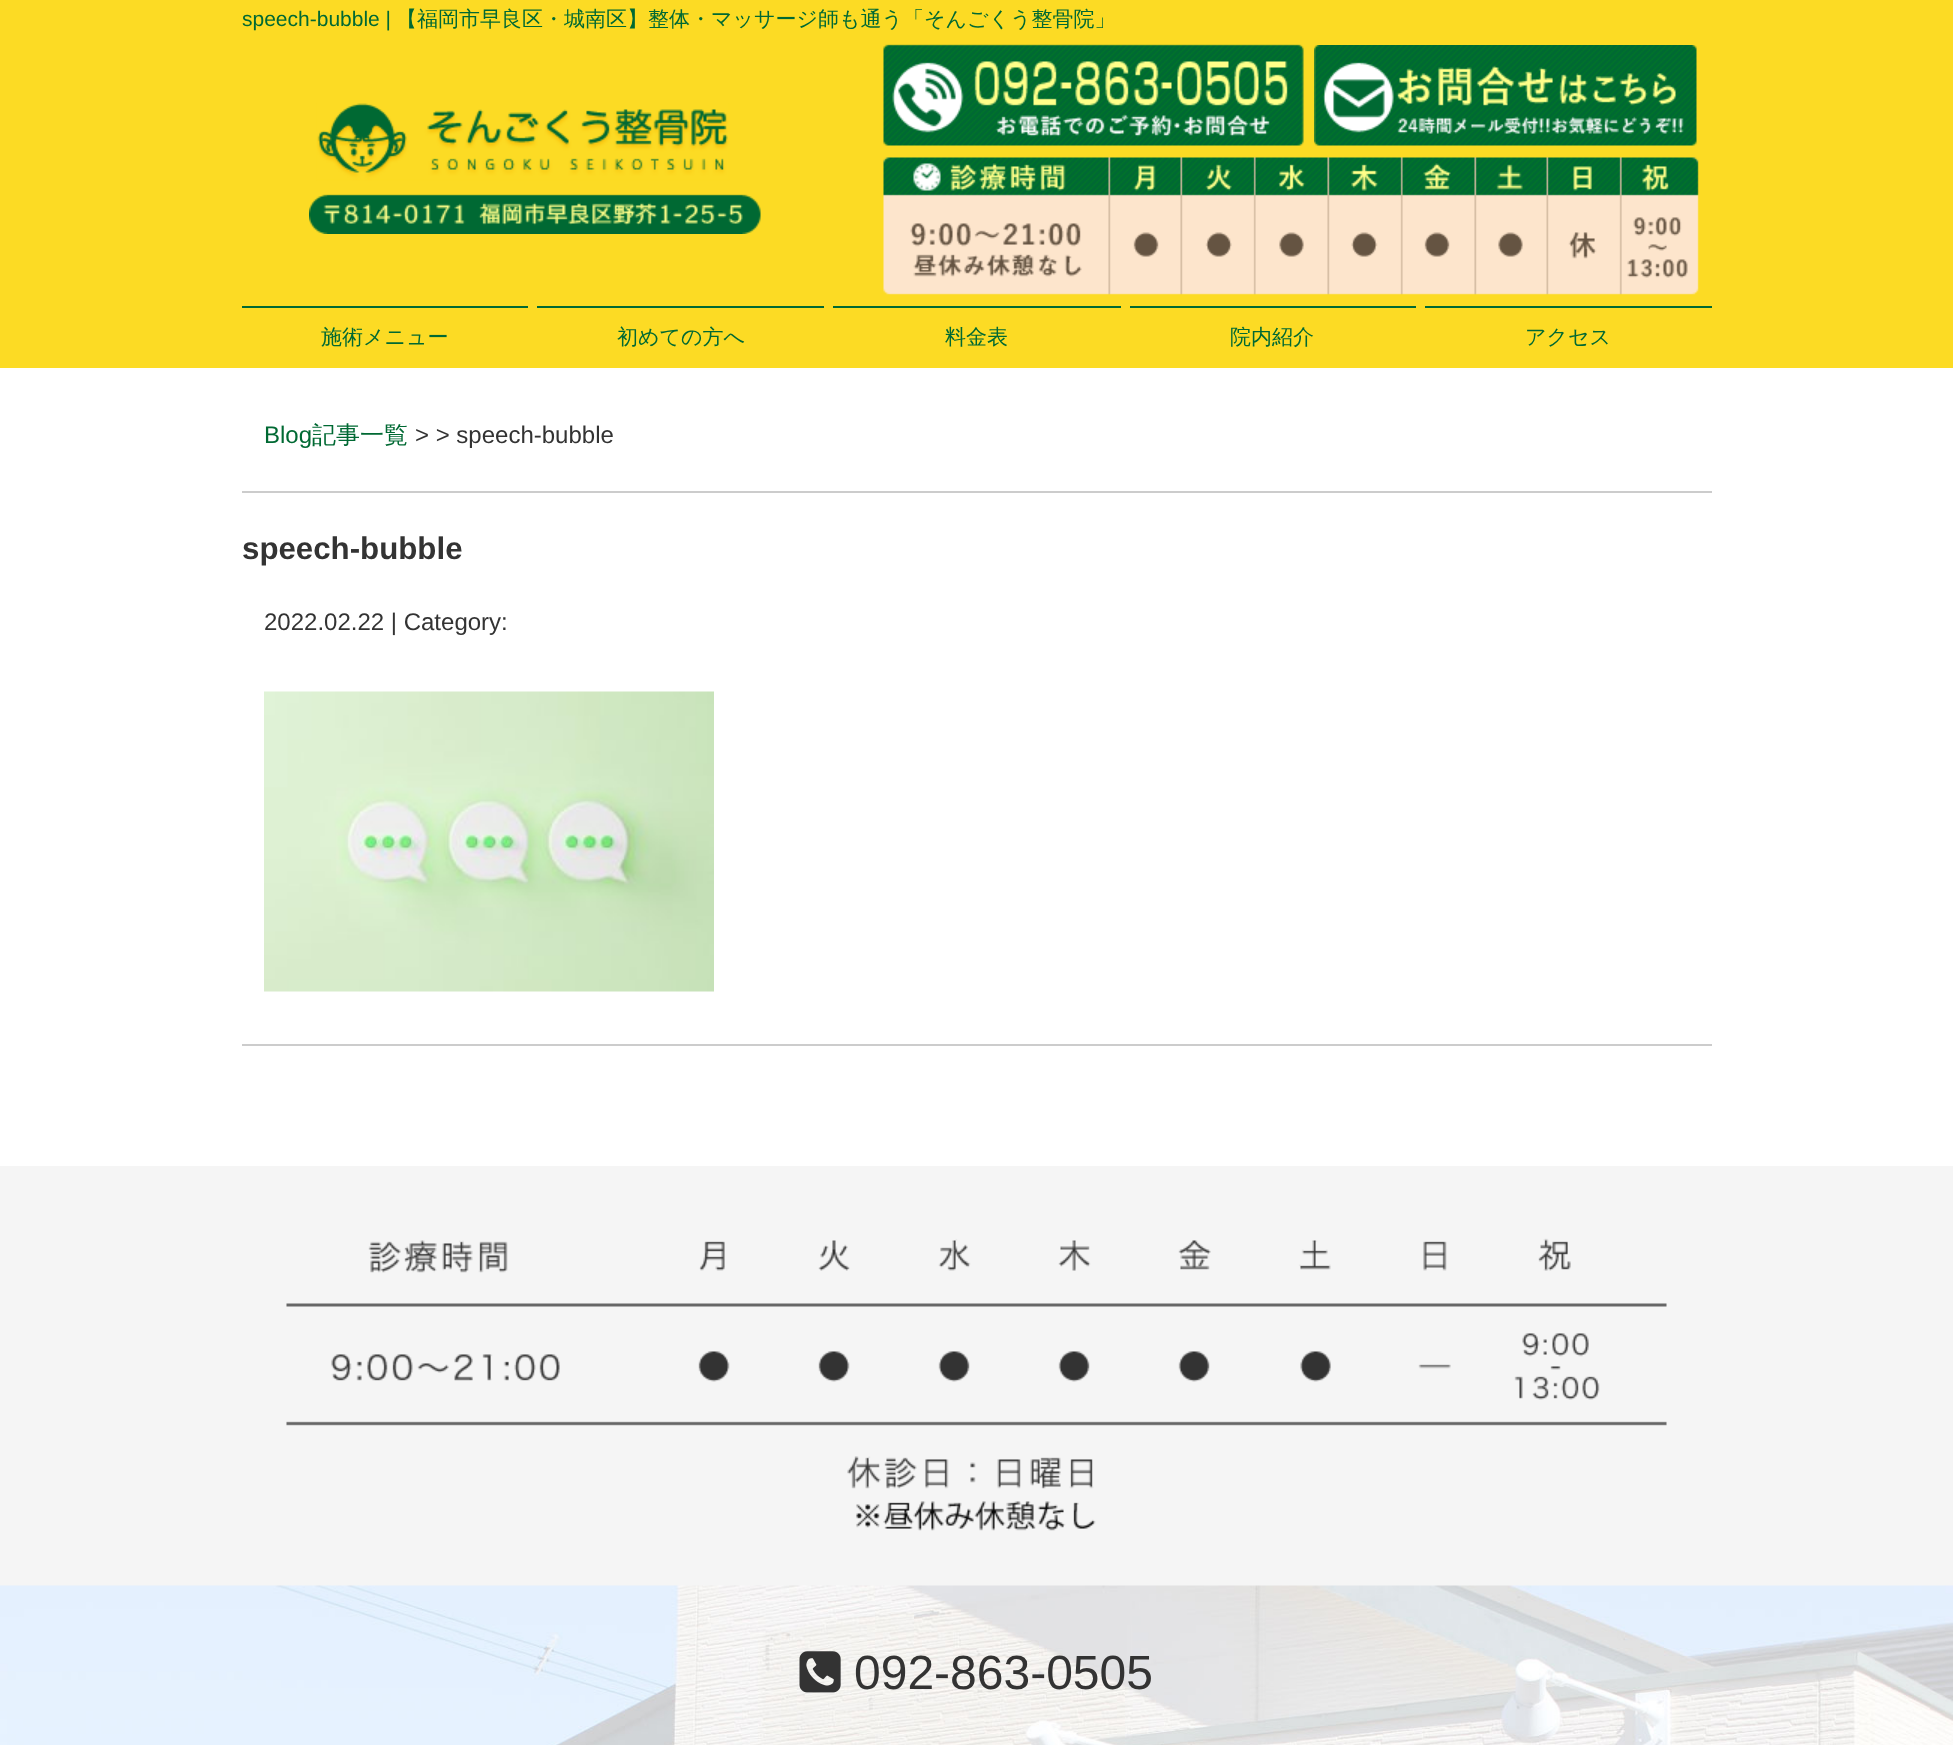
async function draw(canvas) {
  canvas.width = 1953
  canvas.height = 1745
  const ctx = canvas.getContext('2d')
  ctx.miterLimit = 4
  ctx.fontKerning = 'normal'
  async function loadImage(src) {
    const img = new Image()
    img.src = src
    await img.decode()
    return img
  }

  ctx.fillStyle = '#fff'
  ctx.fillRect(0, 0, 1953, 1745)
  ctx.fillStyle = '#fcdb24'
  ctx.fillRect(0, 0, 1953, 368)
  ctx.font = '21px Liberation Sans'
  ctx.fillStyle = '#006933'
  ctx.fillText('speech-bubble |', 242, 26)
  ctx.font = '500 21px WenQuanYi Zen Hei'
  ctx.fillText('【福岡市早良区・城南区】整体・マッサージ師も通う「そんごくう整骨院」', 396, 26)
  ctx.drawImage(await loadImage('image0.png'), 883, 44, 816, 251)
  ctx.drawImage(await loadImage('image1.png'), 309, 103, 452, 131)
  ctx.drawImage(await loadImage('image2.png'), 1314, 45, 383, 101)
  ctx.fillRect(242, 306, 286, 2)
  ctx.fillText('施術メニュー', 321, 344)
  ctx.fillRect(537, 306, 287, 2)
  ctx.fillText('初めての方へ', 617, 344)
  ctx.fillRect(833, 306, 288, 2)
  ctx.fillText('料金表', 945, 344)
  ctx.fillRect(1130, 306, 286, 2)
  ctx.fillText('院内紹介', 1230, 344)
  ctx.fillRect(1425, 306, 287, 2)
  ctx.fillText('アクセス', 1525, 344)
  ctx.fillStyle = '#ccc'
  ctx.fillRect(242, 491, 1470, 2)
  ctx.font = '24px Liberation Sans'
  ctx.fillStyle = '#006933'
  ctx.fillText('Blog', 264, 443)
  ctx.font = '500 24px WenQuanYi Zen Hei'
  ctx.fillText('記事一覧', 312, 443)
  ctx.font = '24px Liberation Sans'
  ctx.fillStyle = '#333'
  ctx.fillText('> > speech-bubble', 415, 443)
  ctx.font = 'bold 31.25px Liberation Sans'
  ctx.fillText('speech-bubble', 242, 559)
  ctx.font = '24px Liberation Sans'
  ctx.fillText('2022.02.22 | Category:', 264, 630)
  ctx.fillStyle = '#ccc'
  ctx.fillRect(242, 1044, 1470, 2)
  ctx.drawImage(await loadImage('image3.png'), 264, 691, 450, 301)
  ctx.fillStyle = '#f5f5f5'
  ctx.fillRect(0, 1166, 1953, 420)
  ctx.drawImage(await loadImage('image4.png'), 286, 1238, 1381, 293)
  ctx.drawImage(await loadImage('image5.png'), 0, 1585, 1953, 160)
  ctx.drawImage(await loadImage('image6.png'), 799, 1651, 42, 42)
  ctx.font = '48px Liberation Sans'
  ctx.fillStyle = '#333'
  ctx.fillText('092-863-0505', 854, 1689)
}

draw(document.querySelector('canvas'))
